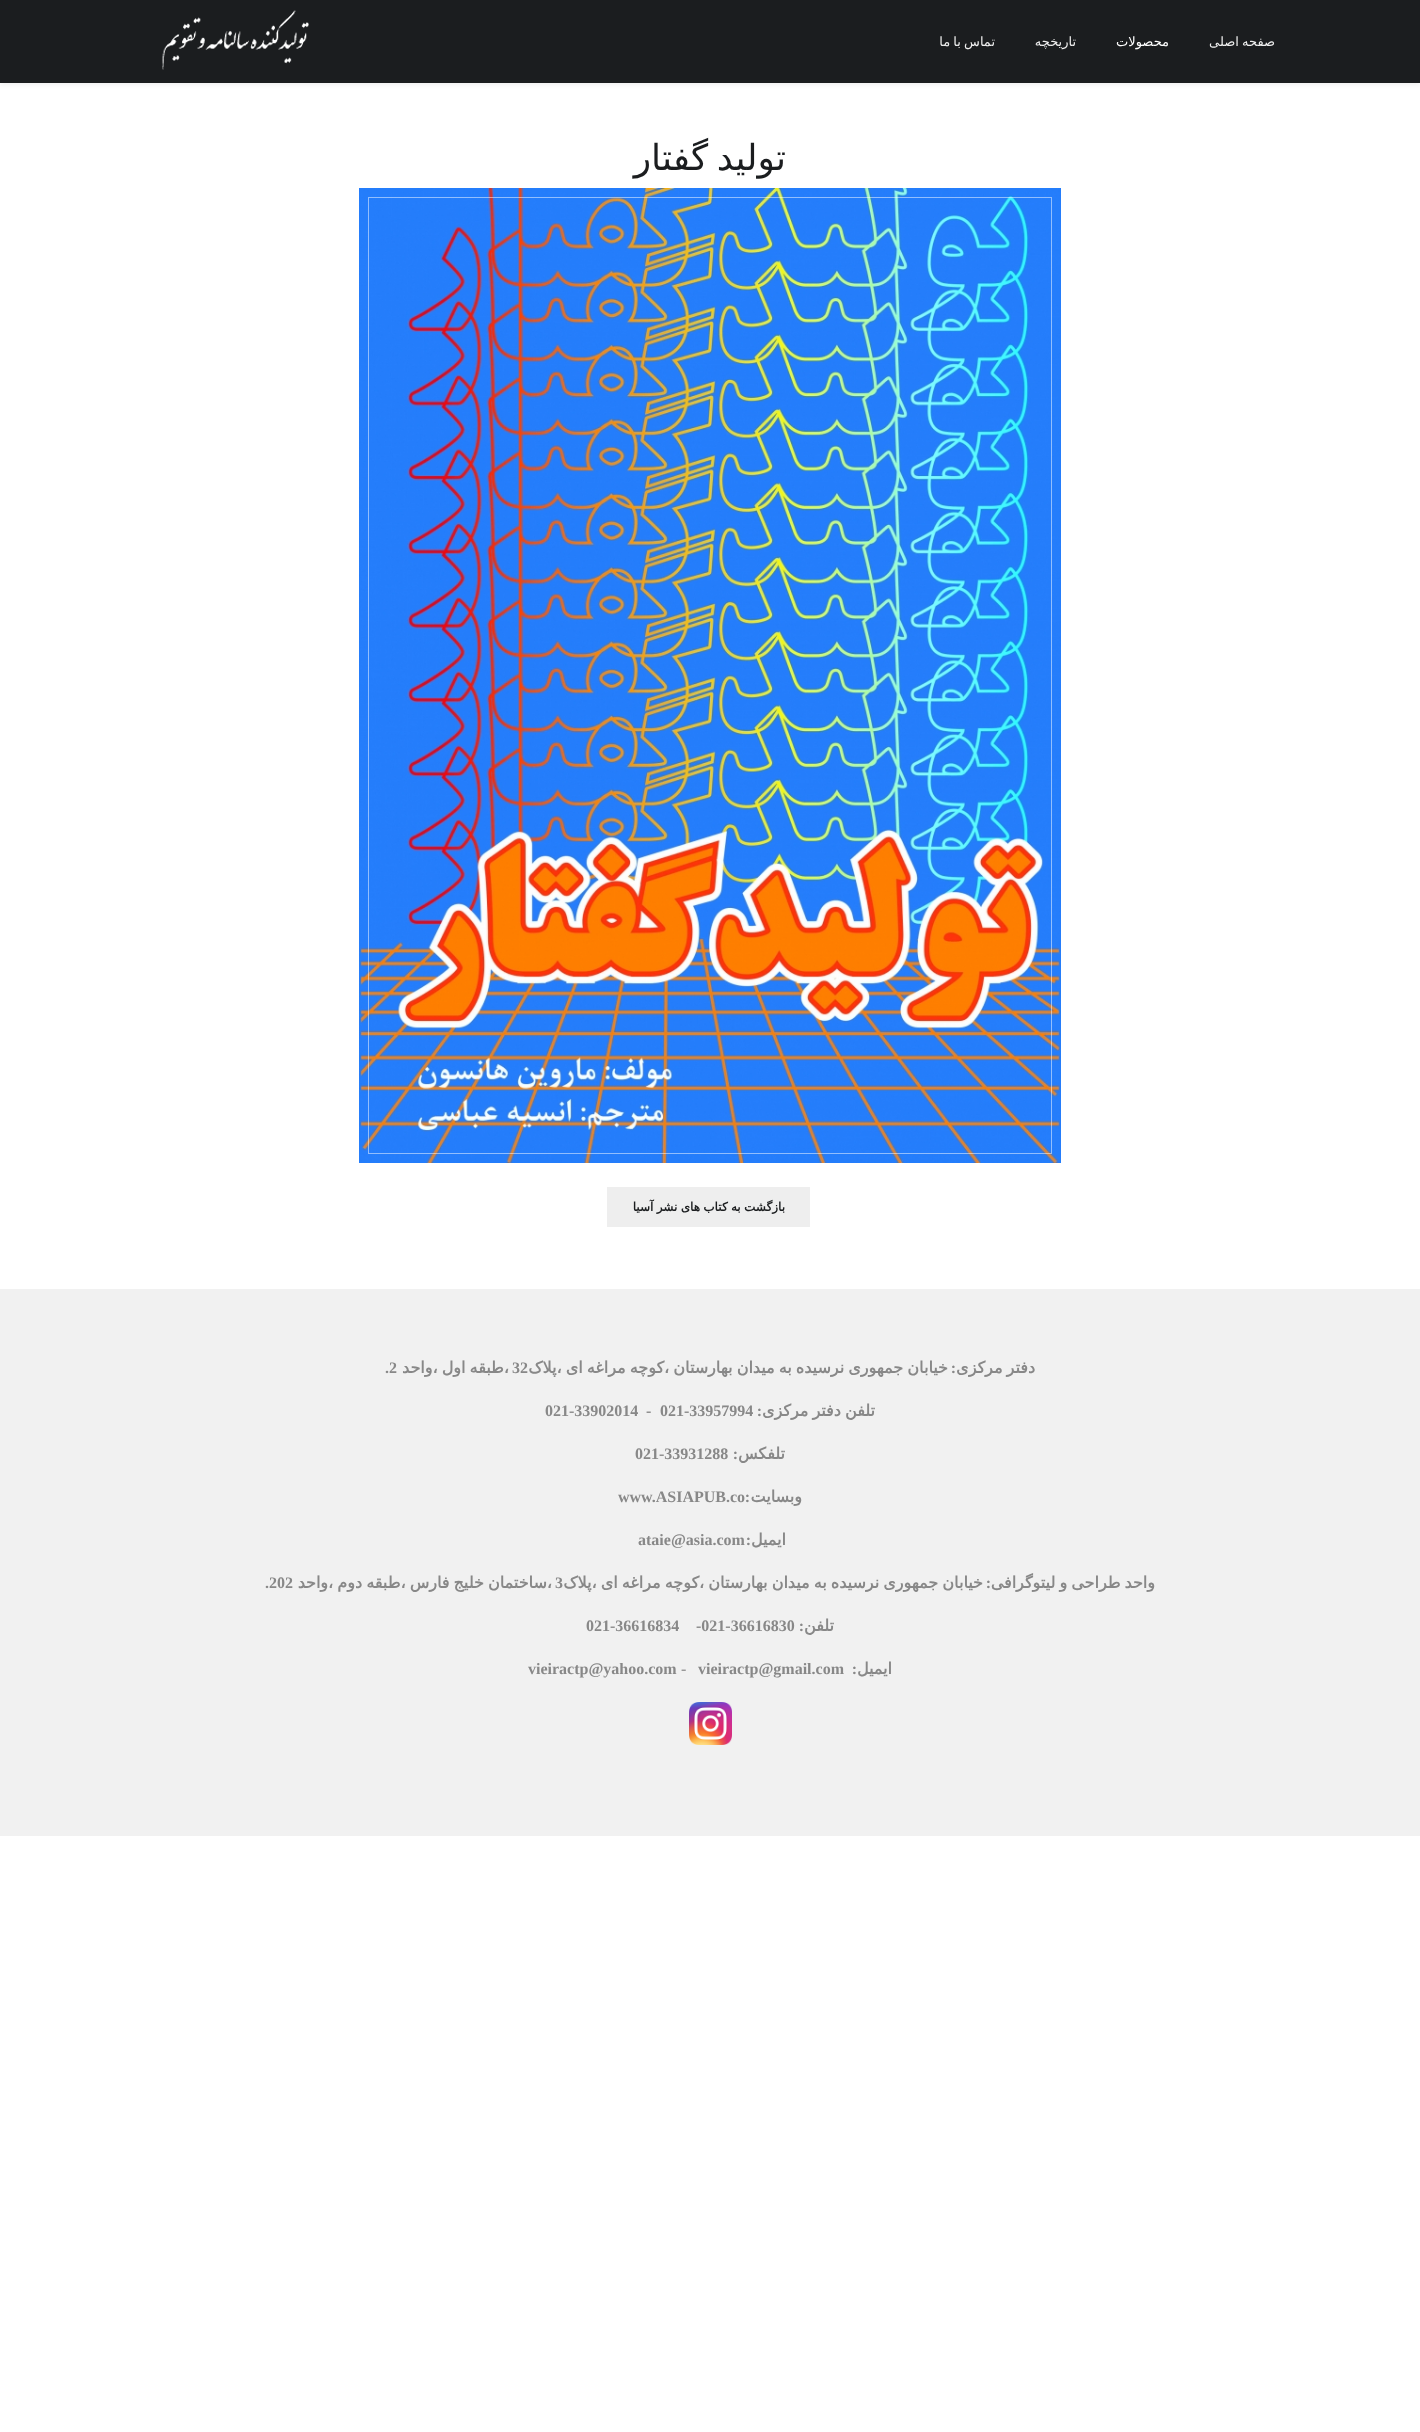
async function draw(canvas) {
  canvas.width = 1420
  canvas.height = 2432
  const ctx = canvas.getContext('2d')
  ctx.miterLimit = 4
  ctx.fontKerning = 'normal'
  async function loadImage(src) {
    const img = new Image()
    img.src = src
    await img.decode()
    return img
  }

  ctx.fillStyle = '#fff'
  ctx.fillRect(0, 0, 1420, 2432)
  ctx.fillStyle = '#0000000f'
  ctx.filter = 'blur(2.5px)'
  ctx.beginPath()
  ctx.rect(0, 2, 1420, 83)
  ctx.fill()
  ctx.filter = 'none'
  ctx.fillStyle = '#1b1d1f'
  ctx.fillRect(0, 0, 1420, 83)
  ctx.wordSpacing = '-1px'
  ctx.direction = 'rtl'
  ctx.font = '13px DejaVu Sans'
  ctx.fillStyle = '#eee'
  ctx.fillText('صفحه اصلی', 1275, 46)
  ctx.wordSpacing = '0px'
  ctx.fillStyle = '#fff'
  ctx.fillText('محصولات', 1169, 46)
  ctx.fillStyle = '#eee'
  ctx.fillText('تاریخچه', 1076, 46)
  ctx.wordSpacing = '-1px'
  ctx.fillText('تماس با ما', 995, 46)
  ctx.drawImage(await loadImage('image0.png'), 162, 10, 147, 60)
  ctx.wordSpacing = '-3px'
  ctx.font = '36px DejaVu Sans'
  ctx.fillStyle = '#1b1d1f'
  ctx.fillText('تولید گفتار', 786, 170)
  ctx.drawImage(await loadImage('image1.png'), 359, 188, 702, 975)
  ctx.strokeStyle = '#ffffff80'
  ctx.strokeRect(368.5, 197.5, 683, 956)
  ctx.fillStyle = '#eee'
  ctx.fillRect(607, 1187, 203, 40)
  ctx.wordSpacing = '-0.5px'
  ctx.font = 'bold 12px DejaVu Sans'
  ctx.fillStyle = '#1b1d1f'
  ctx.fillText('بازگشت به کتاب های نشر آسیا', 785, 1211)
  ctx.fillStyle = '#f1f1f1'
  ctx.fillRect(0, 1289, 1420, 547)
  ctx.wordSpacing = '-1px'
  ctx.font = 'bold 16px DejaVu Sans'
  ctx.fillStyle = '#888'
  ctx.fillText('دفتر مرکزی', 1035, 1373)
  ctx.fillText('خیابان جمهوری نرسیده به میدان بهارستان ،کوچه مراغه ای ،پلاک', 948, 1373)
  ctx.wordSpacing = '0px'
  ctx.direction = 'ltr'
  ctx.font = 'bold 16px Liberation Serif'
  ctx.fillText('32', 512, 1373)
  ctx.wordSpacing = '-1px'
  ctx.direction = 'rtl'
  ctx.font = 'bold 16px DejaVu Sans'
  ctx.fillText('،طبقه اول ،واحد', 509, 1373)
  ctx.wordSpacing = '0px'
  ctx.direction = 'ltr'
  ctx.font = 'bold 16px Liberation Serif'
  ctx.fillText('.2', 385, 1373)
  ctx.direction = 'rtl'
  ctx.fillText(':', 956, 1373)
  ctx.wordSpacing = '-1px'
  ctx.font = 'bold 16px DejaVu Sans'
  ctx.fillText('تلفن دفتر مرکزی', 875, 1416)
  ctx.wordSpacing = '0px'
  ctx.font = 'bold 16px Liberation Serif'
  ctx.fillText(':', 762, 1416)
  ctx.direction = 'ltr'
  ctx.fillText('021-33957994', 660, 1416)
  ctx.fillText('-', 646, 1416)
  ctx.fillText('021-33902014', 545, 1416)
  ctx.direction = 'rtl'
  ctx.font = 'bold 16px DejaVu Sans'
  ctx.fillText('تلفکس', 785, 1459)
  ctx.font = 'bold 16px Liberation Serif'
  ctx.fillText(':', 738, 1459)
  ctx.direction = 'ltr'
  ctx.fillText('021-33931288', 635, 1459)
  ctx.direction = 'rtl'
  ctx.font = 'bold 16px DejaVu Sans'
  ctx.fillText('وبسایت', 802, 1502)
  ctx.font = 'bold 16px Liberation Serif'
  ctx.fillText(':', 750, 1502)
  ctx.direction = 'ltr'
  ctx.fillText('www.ASIAPUB.co', 618, 1502)
  ctx.direction = 'rtl'
  ctx.font = 'bold 16px DejaVu Sans'
  ctx.fillText('ایمیل', 786, 1545)
  ctx.font = 'bold 16px Liberation Serif'
  ctx.fillText(':', 751, 1545)
  ctx.direction = 'ltr'
  ctx.fillText('ataie@asia.com', 638, 1545)
  ctx.wordSpacing = '-1px'
  ctx.direction = 'rtl'
  ctx.font = 'bold 16px DejaVu Sans'
  ctx.fillText('واحد طراحی و لیتوگرافی', 1155, 1588)
  ctx.fillText('خیابان جمهوری نرسیده به میدان بهارستان ،کوچه مراغه ای ،پلاک', 983, 1588)
  ctx.fillText('،ساختمان خلیج فارس ،طبقه دوم ،واحد', 552, 1588)
  ctx.wordSpacing = '0px'
  ctx.direction = 'ltr'
  ctx.font = 'bold 16px Liberation Serif'
  ctx.fillText('3', 555, 1588)
  ctx.fillText('.202', 265, 1588)
  ctx.direction = 'rtl'
  ctx.fillText(':', 991, 1588)
  ctx.font = 'bold 16px DejaVu Sans'
  ctx.fillText('تلفن', 834, 1631)
  ctx.font = 'bold 16px Liberation Serif'
  ctx.fillText(':', 804, 1631)
  ctx.direction = 'ltr'
  ctx.fillText('-021-36616830', 696, 1631)
  ctx.fillText('021-36616834', 586, 1631)
  ctx.direction = 'rtl'
  ctx.font = 'bold 16px DejaVu Sans'
  ctx.fillText('ایمیل', 892, 1674)
  ctx.font = 'bold 16px Liberation Serif'
  ctx.fillText(':', 857, 1674)
  ctx.direction = 'ltr'
  ctx.fillText('vieiractp@gmail.com', 698, 1674)
  ctx.font = '16px Liberation Serif'
  ctx.fillText('-', 681, 1674)
  ctx.font = 'bold 16px Liberation Serif'
  ctx.fillText('vieiractp@yahoo.com', 528, 1674)
  ctx.drawImage(await loadImage('image2.png'), 689, 1702, 43, 43)
}

draw(document.querySelector('canvas'))
